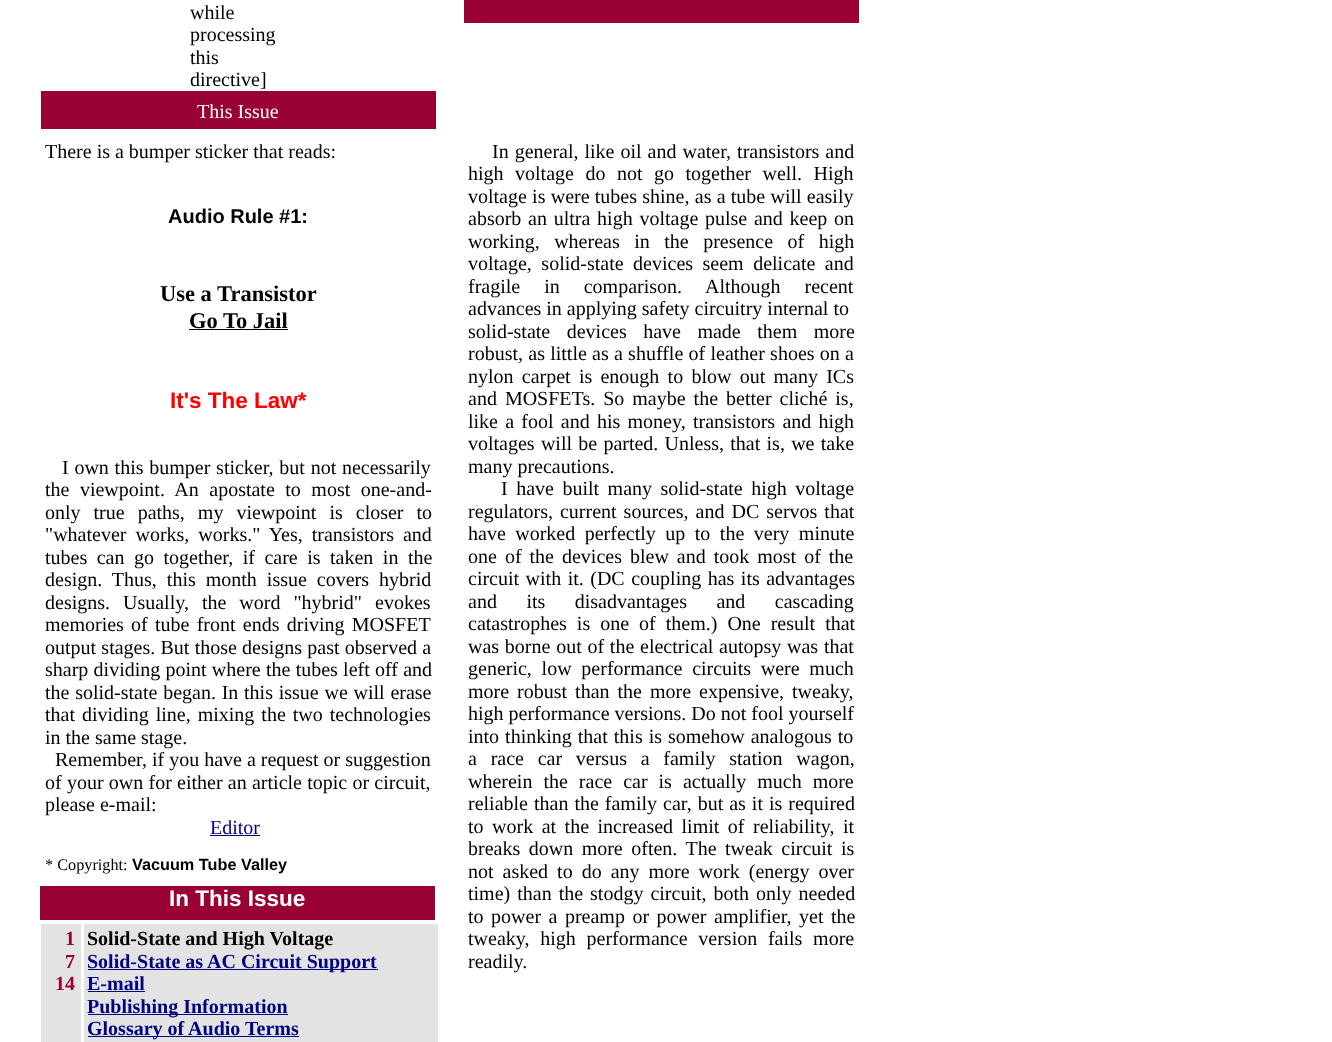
async function draw(canvas) {
  canvas.width = 1332
  canvas.height = 1042
  const ctx = canvas.getContext('2d')
  ctx.miterLimit = 4
  ctx.fontKerning = 'normal'

  ctx.fillStyle = '#fff'
  ctx.fillRect(0, 0, 1332, 1042)
  ctx.font = '20px Liberation Serif'
  ctx.fillStyle = '#000'
  ctx.fillText('while', 190, 19)
  ctx.fillText('processing', 190, 41)
  ctx.fillText('this', 190, 64)
  ctx.fillText('directive]', 190, 86)
  ctx.fillStyle = '#903'
  ctx.fillRect(464, 0, 395, 23)
  ctx.fillRect(41, 91, 395, 38)
  ctx.fillStyle = '#fff'
  ctx.fillText('This Issue', 197, 118)
  ctx.fillStyle = '#000'
  ctx.fillText('There is a bumper sticker that reads:', 45, 158)
  ctx.font = 'bold 20px Liberation Sans'
  ctx.fillText('Audio Rule #1:', 168, 223)
  ctx.font = 'bold 22.5px Liberation Serif'
  ctx.fillText('Use a Transistor', 160, 301)
  ctx.fillText('Go To Jail', 189, 328)
  ctx.fillRect(189, 329, 99, 1)
  ctx.font = 'bold 22.5px Liberation Sans'
  ctx.fillStyle = '#f00'
  ctx.fillText('It\'s The Law*', 170, 408)
  ctx.wordSpacing = '0.75px'
  ctx.font = '20px Liberation Serif'
  ctx.fillStyle = '#000'
  ctx.fillText('I own this bumper sticker, but not necessarily', 62, 474)
  ctx.wordSpacing = '5.5px'
  ctx.fillText('the viewpoint. An apostate to most one-and-', 45, 496)
  ctx.wordSpacing = '8px'
  ctx.fillText('only true paths, my viewpoint is closer to', 45, 519)
  ctx.wordSpacing = '4px'
  ctx.fillText('"whatever works, works." Yes, transistors and', 45, 541)
  ctx.wordSpacing = '4.5px'
  ctx.fillText('tubes can go together, if care is taken in the', 45, 564)
  ctx.wordSpacing = '5px'
  ctx.fillText('design. Thus, this month issue covers hybrid', 45, 586)
  ctx.wordSpacing = '8px'
  ctx.fillText('designs. Usually, the word "hybrid" evokes', 45, 609)
  ctx.wordSpacing = '2.25px'
  ctx.fillText('memories of tube front ends driving MOSFET', 45, 631)
  ctx.wordSpacing = '0.25px'
  ctx.fillText('output stages. But those designs past observed a', 45, 654)
  ctx.fillText('sharp dividing point where the tubes left off and', 45, 676)
  ctx.wordSpacing = '0.75px'
  ctx.fillText('the solid-state began. In this issue we will erase', 45, 699)
  ctx.wordSpacing = '2px'
  ctx.fillText('that dividing line, mixing the two technologies', 45, 721)
  ctx.wordSpacing = '0px'
  ctx.fillText('in the same stage.', 45, 744)
  ctx.fillText('Remember, if you have a request or suggestion', 55, 766)
  ctx.wordSpacing = '0.25px'
  ctx.fillText('of your own for either an article topic or circuit,', 45, 789)
  ctx.wordSpacing = '0px'
  ctx.fillText('please e-mail:', 45, 811)
  ctx.fillStyle = '#000080'
  ctx.fillText('Editor', 210, 834)
  ctx.fillRect(210, 835, 50, 1)
  ctx.font = '16.25px Liberation Serif'
  ctx.fillStyle = '#000'
  ctx.fillText('* Copyright:', 45, 870)
  ctx.font = 'bold 16.25px Liberation Sans'
  ctx.fillText('Vacuum Tube Valley', 132, 870)
  ctx.wordSpacing = '1px'
  ctx.font = '20px Liberation Serif'
  ctx.fillText('In general, like oil and water, transistors and', 492, 158)
  ctx.wordSpacing = '6.5px'
  ctx.fillText('high voltage do not go together well. High', 468, 180)
  ctx.wordSpacing = '0.25px'
  ctx.fillText('voltage is were tubes shine, as a tube will easily', 468, 203)
  ctx.wordSpacing = '1.75px'
  ctx.fillText('absorb an ultra high voltage pulse and keep on', 468, 225)
  ctx.wordSpacing = '9.5px'
  ctx.fillText('working, whereas in the presence of high', 468, 248)
  ctx.wordSpacing = '4.5px'
  ctx.fillText('voltage, solid-state devices seem delicate and', 468, 270)
  ctx.wordSpacing = '19px'
  ctx.fillText('fragile in comparison. Although recent', 468, 293)
  ctx.wordSpacing = '0px'
  ctx.fillText('advances in applying safety circuitry internal to', 468, 315)
  ctx.wordSpacing = '11.5px'
  ctx.fillText('solid-state devices have made them more', 468, 338)
  ctx.wordSpacing = '0.25px'
  ctx.fillText('robust, as little as a shuffle of leather shoes on a', 468, 360)
  ctx.wordSpacing = '3.25px'
  ctx.fillText('nylon carpet is enough to blow out many ICs', 468, 383)
  ctx.wordSpacing = '3px'
  ctx.fillText('and MOSFETs. So maybe the better cliché is,', 468, 405)
  ctx.wordSpacing = '2.25px'
  ctx.fillText('like a fool and his money, transistors and high', 468, 428)
  ctx.wordSpacing = '1.25px'
  ctx.fillText('voltages will be parted. Unless, that is, we take', 468, 450)
  ctx.wordSpacing = '0px'
  ctx.fillText('many precautions.', 468, 473)
  ctx.wordSpacing = '3.5px'
  ctx.fillText('I have built many solid-state high voltage', 501, 495)
  ctx.wordSpacing = '2px'
  ctx.fillText('regulators, current sources, and DC servos that', 468, 518)
  ctx.wordSpacing = '4.5px'
  ctx.fillText('have worked perfectly up to the very minute', 468, 540)
  ctx.wordSpacing = '3px'
  ctx.fillText('one of the devices blew and took most of the', 468, 563)
  ctx.wordSpacing = '1.5px'
  ctx.fillText('circuit with it. (DC coupling has its advantages', 468, 585)
  ctx.wordSpacing = '24.5px'
  ctx.fillText('and its disadvantages and cascading', 468, 608)
  ctx.wordSpacing = '5px'
  ctx.fillText('catastrophes is one of them.) One result that', 468, 630)
  ctx.wordSpacing = '0.75px'
  ctx.fillText('was borne out of the electrical autopsy was that', 468, 653)
  ctx.wordSpacing = '4.75px'
  ctx.fillText('generic, low performance circuits were much', 468, 675)
  ctx.wordSpacing = '3px'
  ctx.fillText('more robust than the more expensive, tweaky,', 468, 698)
  ctx.wordSpacing = '0px'
  ctx.fillText('high performance versions. Do not fool yourself', 468, 720)
  ctx.wordSpacing = '1px'
  ctx.fillText('into thinking that this is somehow analogous to', 468, 743)
  ctx.wordSpacing = '8.75px'
  ctx.fillText('a race car versus a family station wagon,', 468, 765)
  ctx.wordSpacing = '6px'
  ctx.fillText('wherein the race car is actually much more', 468, 788)
  ctx.wordSpacing = '1px'
  ctx.fillText('reliable than the family car, but as it is required', 468, 810)
  ctx.wordSpacing = '3.5px'
  ctx.fillText('to work at the increased limit of reliability, it', 468, 833)
  ctx.fillText('breaks down more often. The tweak circuit is', 468, 855)
  ctx.wordSpacing = '4px'
  ctx.fillText('not asked to do any more work (energy over', 468, 878)
  ctx.wordSpacing = '2px'
  ctx.fillText('time) than the stodgy circuit, both only needed', 468, 900)
  ctx.wordSpacing = '2.5px'
  ctx.fillText('to power a preamp or power amplifier, yet the', 468, 923)
  ctx.wordSpacing = '5.75px'
  ctx.fillText('tweaky, high performance version fails more', 468, 945)
  ctx.wordSpacing = '0px'
  ctx.fillText('readily.', 468, 968)
  ctx.fillStyle = '#903'
  ctx.fillRect(40, 886, 395, 34)
  ctx.font = 'bold 22.5px Liberation Sans'
  ctx.fillStyle = '#fff'
  ctx.fillText('In This Issue', 169, 906)
  ctx.fillStyle = '#e3e3e3'
  ctx.fillRect(41, 924, 40, 118)
  ctx.font = 'bold 20px Liberation Serif'
  ctx.fillStyle = '#903'
  ctx.fillText('1', 65, 945)
  ctx.fillText('7', 65, 968)
  ctx.fillText('14', 55, 990)
  ctx.fillStyle = '#e3e3e3'
  ctx.fillRect(84, 924, 354, 118)
  ctx.fillStyle = '#000'
  ctx.fillText('Solid-State and High Voltage', 87, 945)
  ctx.fillStyle = '#000080'
  ctx.fillRect(88, 969, 290, 1)
  ctx.fillText('Solid-State as AC Circuit Support', 87, 968)
  ctx.fillText('E-mail', 87, 990)
  ctx.fillRect(88, 991, 57, 1)
  ctx.fillRect(88, 1014, 200, 1)
  ctx.fillText('Publishing Information', 87, 1013)
  ctx.fillRect(88, 1036, 211, 1)
  ctx.fillText('Glossary of Audio Terms', 87, 1035)
}

draw(document.querySelector('canvas'))
